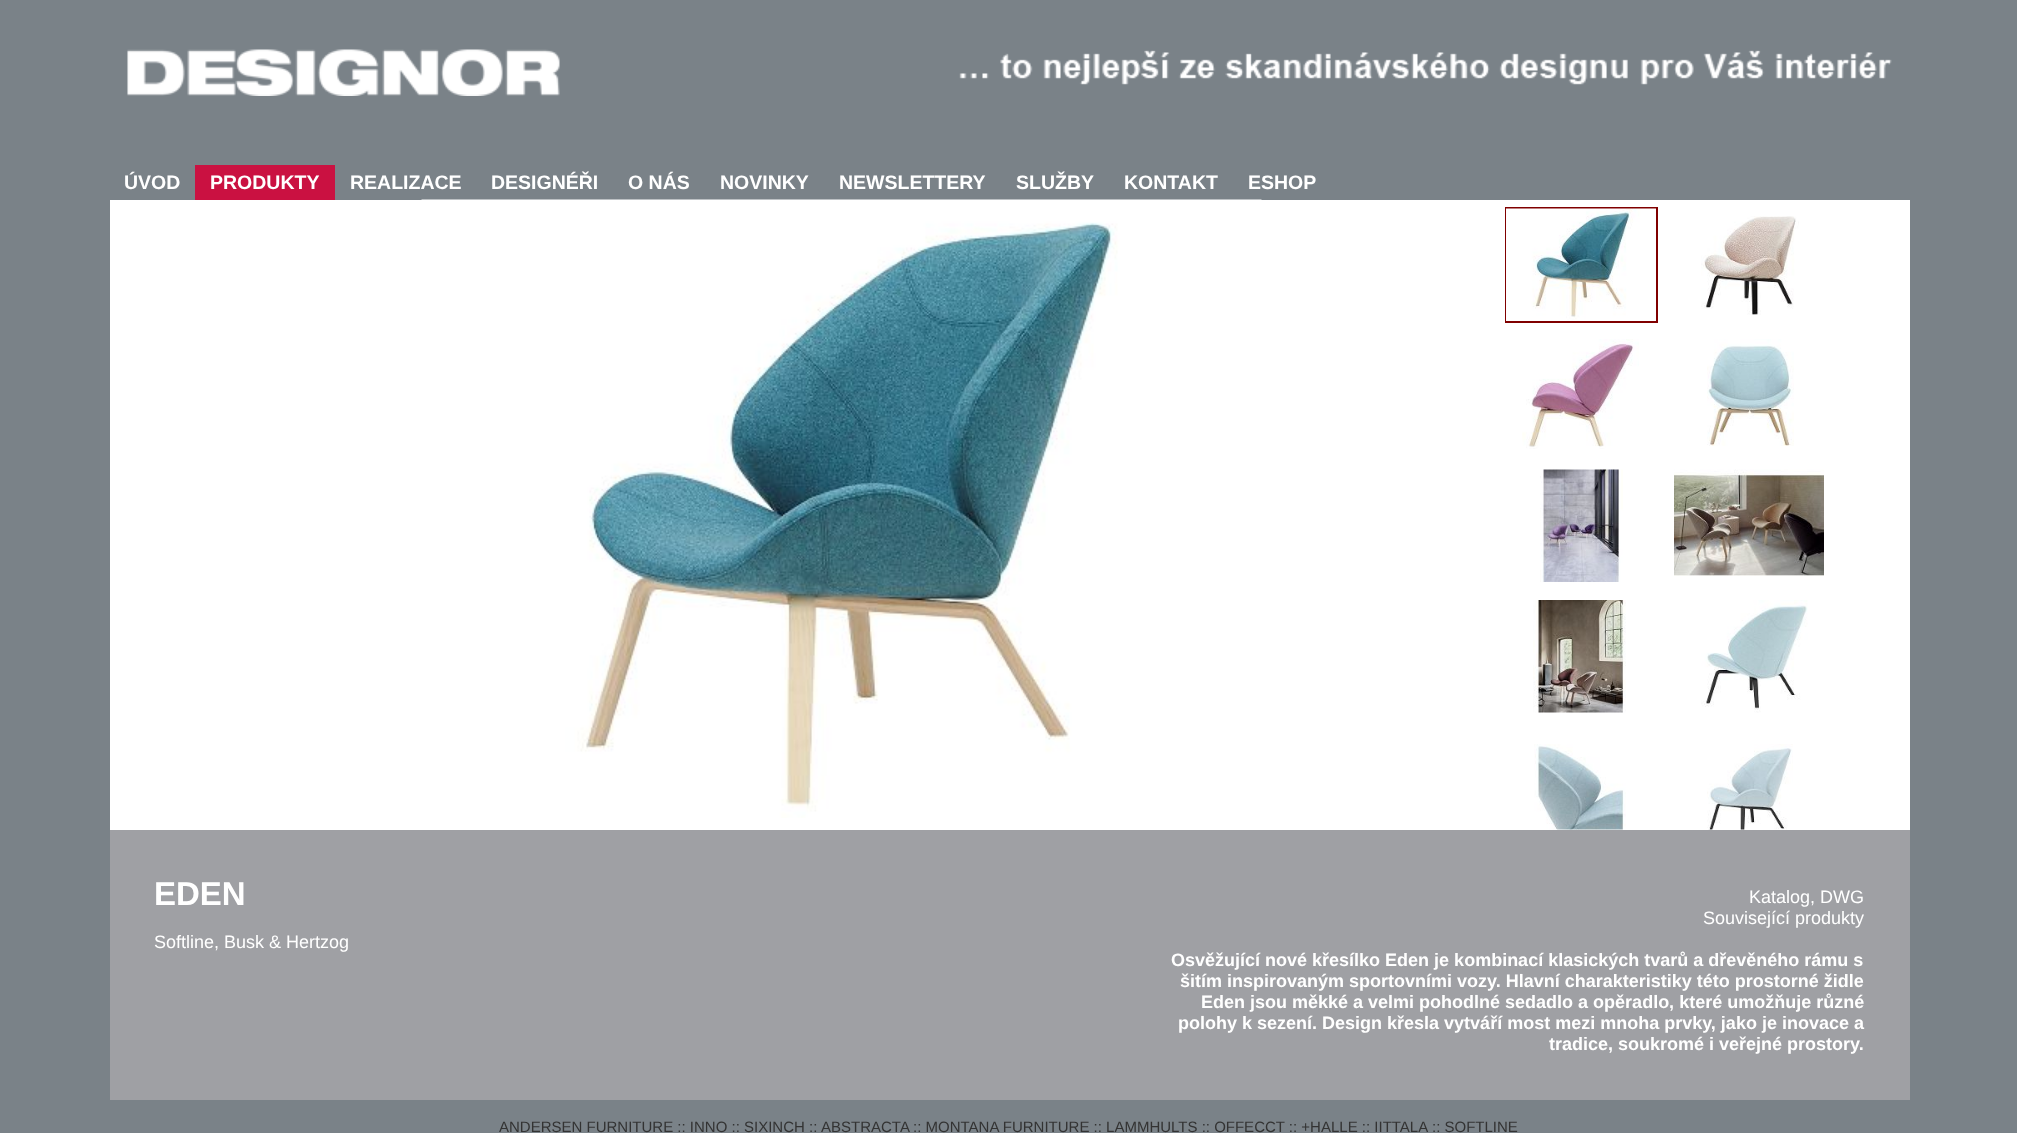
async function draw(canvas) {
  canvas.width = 2017
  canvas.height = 1133
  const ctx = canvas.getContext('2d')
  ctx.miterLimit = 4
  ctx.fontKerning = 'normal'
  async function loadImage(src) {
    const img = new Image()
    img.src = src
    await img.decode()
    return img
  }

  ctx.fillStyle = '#7a8288'
  ctx.fillRect(0, 0, 2017, 1133)
  ctx.drawImage(await loadImage('image0.png'), 127, 49, 1765, 47)
  ctx.font = 'bold 19.5px Liberation Sans'
  ctx.fillStyle = '#fff'
  ctx.fillText('ÚVOD', 124, 189)
  ctx.fillStyle = '#ca1141'
  ctx.fillRect(195, 165, 140, 35)
  ctx.fillStyle = '#fff'
  ctx.fillText('PRODUKTY', 210, 189)
  ctx.fillText('REALIZACE', 350, 189)
  ctx.fillText('DESIGNÉŘI', 491, 189)
  ctx.fillText('O NÁS', 628, 189)
  ctx.fillText('NOVINKY', 720, 189)
  ctx.fillText('NEWSLETTERY', 839, 189)
  ctx.fillText('SLUŽBY', 1016, 189)
  ctx.fillText('KONTAKT', 1124, 189)
  ctx.fillText('ESHOP', 1248, 189)
  ctx.fillRect(110, 200, 1800, 630)
  ctx.drawImage(await loadImage('image1.png'), 421, 199, 841, 619)
  ctx.strokeStyle = '#800000'
  ctx.lineWidth = 2
  ctx.strokeRect(1506, 208, 151, 114)
  ctx.drawImage(await loadImage('image2.png'), 1506, 208, 150, 113)
  ctx.drawImage(await loadImage('image3.png'), 1701, 216, 98, 99)
  ctx.drawImage(await loadImage('image4.png'), 1522, 339, 117, 110)
  ctx.drawImage(await loadImage('image5.png'), 1707, 339, 87, 107)
  ctx.drawImage(await loadImage('image6.png'), 1540, 469, 83, 113)
  ctx.drawImage(await loadImage('image7.png'), 1674, 469, 150, 107)
  ctx.drawImage(await loadImage('image8.png'), 1533, 600, 93, 113)
  ctx.drawImage(await loadImage('image9.png'), 1701, 600, 107, 113)
  ctx.drawImage(await loadImage('image10.png'), 1534, 744, 92, 86)
  ctx.drawImage(await loadImage('image11.png'), 1707, 744, 86, 86)
  ctx.fillStyle = '#9fa0a4'
  ctx.fillRect(110, 830, 1800, 270)
  ctx.font = 'bold 33px Liberation Sans'
  ctx.fillStyle = '#fff'
  ctx.fillText('EDEN', 154, 905)
  ctx.font = '18px Liberation Sans'
  ctx.fillText('Softline, Busk & Hertzog', 154, 948)
  ctx.fillText('Katalog, DWG', 1749, 903)
  ctx.fillText('Související produkty', 1703, 924)
  ctx.font = 'bold 18px Liberation Sans'
  ctx.fillText('Osvěžující nové křesílko Eden je kombinací klasických tvarů a dřevěného rámu s', 1171, 966)
  ctx.fillText('šitím inspirovaným sportovními vozy. Hlavní charakteristiky této prostorné židle', 1180, 987)
  ctx.fillText('Eden jsou měkké a velmi pohodlné sedadlo a opěradlo, které umožňuje různé', 1201, 1008)
  ctx.fillText('polohy k sezení. Design křesla vytváří most mezi mnoha prvky, jako je inovace a', 1178, 1029)
  ctx.fillText('tradice, soukromé i veřejné prostory.', 1549, 1050)
  ctx.font = '15px Liberation Sans'
  ctx.fillStyle = '#333'
  ctx.fillText('ANDERSEN FURNITURE :: INNO :: SIXINCH', 499, 1132)
  ctx.fillText('::', 809, 1132)
  ctx.fillText('ABSTRACTA', 821, 1132)
  ctx.fillText(':: MONTANA FURNITURE :: LAMMHULTS :: OFFECCT :: +HALLE :: IITTALA', 913, 1132)
  ctx.fillText(':: SOFTLINE', 1432, 1132)
}

draw(document.querySelector('canvas'))
